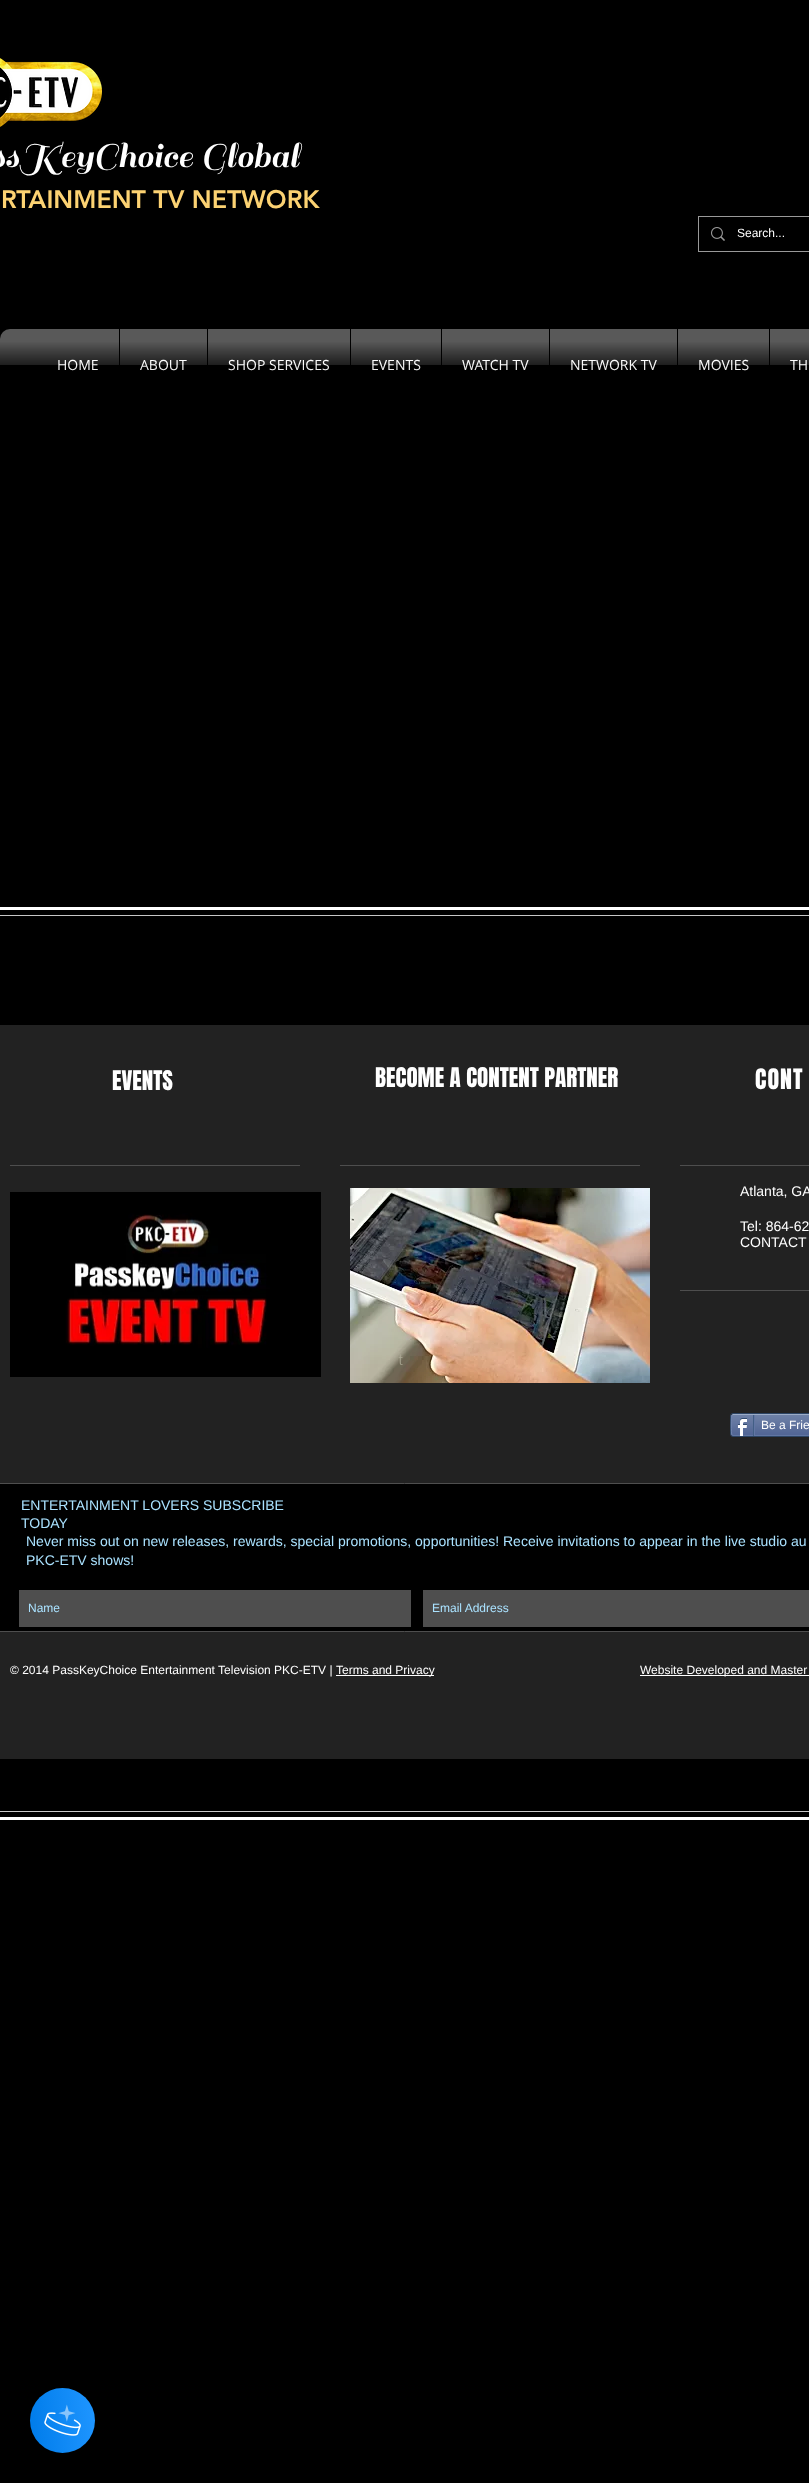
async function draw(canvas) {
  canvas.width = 809
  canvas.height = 2483
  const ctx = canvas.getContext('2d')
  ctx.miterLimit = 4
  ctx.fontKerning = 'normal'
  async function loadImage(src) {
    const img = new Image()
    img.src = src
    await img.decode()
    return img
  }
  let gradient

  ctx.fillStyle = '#000'
  ctx.fillRect(0, 0, 809, 2483)
  ctx.drawImage(await loadImage('image0.png'), 0, 58, 102, 69)
  ctx.font = '38px Sail'
  ctx.fillStyle = '#fff'
  ctx.fillText('ssKeyChoice Global', -9, 167)
  ctx.font = '900 25px "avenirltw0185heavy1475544"'
  ctx.fillStyle = '#fcd272'
  ctx.fillText('RTAINMENT TV NETWORK', 1, 208)
  ctx.strokeStyle = '#999'
  ctx.strokeRect(698.5, 216.5, 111, 35)
  ctx.drawImage(await loadImage('image1.png'), 711, 227, 14, 14)
  ctx.font = '12px Liberation Sans'
  ctx.fillStyle = '#fff'
  ctx.fillText('Search...', 737, 237)
  ctx.drawImage(await loadImage('image2.png'), 0, 329, 37, 36)
  ctx.font = '14px Open Sans'
  ctx.fillText('HOME', 57, 370)
  ctx.drawImage(await loadImage('image3.png'), 37, 329, 82, 41)
  ctx.fillText('ABOUT', 140, 370)
  ctx.drawImage(await loadImage('image4.png'), 120, 329, 87, 41)
  ctx.fillText('SHOP SERVICES', 228, 370)
  ctx.drawImage(await loadImage('image5.png'), 208, 329, 142, 41)
  ctx.fillText('EVENTS', 371, 370)
  ctx.drawImage(await loadImage('image6.png'), 351, 329, 90, 41)
  ctx.fillText('WATCH TV', 462, 370)
  ctx.drawImage(await loadImage('image7.png'), 442, 329, 107, 41)
  ctx.fillText('NETWORK TV', 570, 370)
  ctx.drawImage(await loadImage('image8.png'), 550, 329, 127, 41)
  ctx.fillText('MOVIES', 698, 370)
  ctx.drawImage(await loadImage('image9.png'), 678, 329, 91, 41)
  ctx.fillText('TH', 790, 370)
  ctx.drawImage(await loadImage('image10.png'), 770, 329, 39, 41)
  ctx.fillRect(0, 907, 809, 3)
  ctx.fillRect(0, 1817, 809, 3)
  ctx.fillStyle = '#c7c7c7'
  ctx.fillRect(0, 915, 809, 1)
  ctx.fillRect(0, 1811, 809, 1)
  ctx.fillStyle = '#222'
  ctx.fillRect(0, 1025, 809, 734)
  ctx.font = '23px Anton'
  ctx.fillStyle = '#fff'
  ctx.fillText('EVENTS', 112, 1090)
  ctx.fillText('BECOME A CONTENT PARTNER', 375, 1087)
  ctx.letterSpacing = '1px'
  ctx.font = '24px Anton'
  ctx.fillText('CONT', 755, 1089)
  ctx.fillStyle = '#4e4e4e'
  ctx.fillRect(10, 1165, 290, 1)
  ctx.fillRect(340, 1165, 300, 1)
  ctx.fillRect(680, 1165, 129, 1)
  ctx.drawImage(await loadImage('image11.png'), 10, 1192, 311, 185)
  ctx.letterSpacing = '0px'
  ctx.font = '14px Liberation Sans'
  ctx.fillStyle = '#fff'
  ctx.fillText('Atlanta, GA', 740, 1196)
  ctx.fillText('Tel: 864-62', 740, 1231)
  ctx.fillText('CONTACT', 740, 1247)
  ctx.fillStyle = '#4e4e4e'
  ctx.fillRect(680, 1290, 129, 1)
  ctx.drawImage(await loadImage('image12.png'), 350, 1188, 300, 195)
  ctx.font = '300 17px "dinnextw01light"'
  ctx.fillStyle = '#aca996'
  ctx.fillText('t', 398, 1365)
  ctx.beginPath()
  ctx.roundRect(730.5, 1413.5, 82, 23, 2.5)
  ctx.strokeStyle = '#2d4565'
  ctx.stroke()
  ctx.drawImage(await loadImage('image13.png'), 731, 1415, 78, 21)
  ctx.beginPath()
  ctx.moveTo(732, 1415)
  ctx.lineTo(733, 1414.5)
  ctx.lineTo(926, 1414.5)
  ctx.lineTo(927, 1415)
  ctx.strokeStyle = '#9aabc6'
  ctx.stroke()
  ctx.beginPath()
  ctx.moveTo(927, 1435)
  ctx.lineTo(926, 1435.5)
  ctx.lineTo(733, 1435.5)
  ctx.lineTo(732, 1435)
  ctx.strokeStyle = '#6176a3'
  ctx.stroke()
  ctx.beginPath()
  ctx.moveTo(732, 1435)
  ctx.bezierCurveTo(731, 1434.5, 731, 1415.5, 732, 1415)
  ctx.strokeStyle = '#6f83ad'
  ctx.stroke()
  ctx.drawImage(await loadImage('image14.png'), 737, 1418, 10, 18)
  ctx.fillStyle = '#425e85'
  ctx.fillRect(753, 1415, 1, 21)
  ctx.font = '12px Liberation Sans'
  ctx.fillStyle = '#fff'
  ctx.fillText('Be a Frie', 761, 1429)
  ctx.fillStyle = '#6176a3'
  ctx.fillRect(754, 1415, 1, 20)
  ctx.fillStyle = '#000'
  ctx.beginPath()
  ctx.rect(-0.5, 1483.5, 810, 148)
  ctx.fill()
  ctx.strokeStyle = '#4e4e4e'
  ctx.stroke()
  ctx.font = '14px Liberation Sans'
  ctx.fillStyle = '#aae2ff'
  ctx.fillText('ENTERTAINMENT LOVERS SUBSCRIBE', 21, 1510)
  ctx.fillText('TODAY', 21, 1528)
  ctx.fillText('Never miss out on new releases, rewards, special promotions, opportunities! Receive invitations to appear in the live studio au', 26, 1546)
  ctx.fillText('PKC-ETV shows!', 26, 1565)
  ctx.fillStyle = '#4e4e4e'
  ctx.fillRect(19, 1590, 392, 37)
  ctx.font = '12px Liberation Sans'
  ctx.fillStyle = '#aae2ff'
  ctx.fillText('Name', 28, 1612)
  ctx.fillStyle = '#4e4e4e'
  ctx.fillRect(423, 1590, 386, 37)
  ctx.fillStyle = '#aae2ff'
  ctx.fillText('Email Address', 432, 1612)
  ctx.fillStyle = '#fff'
  ctx.fillText('© 2014 PassKeyChoice Entertainment Television PKC-ETV |', 10, 1674)
  ctx.fillRect(336, 1675, 98, 1)
  ctx.fillText('Terms and Privacy', 336, 1674)
  ctx.fillRect(640, 1675, 169, 1)
  ctx.fillText('Website Developed and Master', 640, 1674)
  gradient = ctx.createLinearGradient(98, 2417, 27, 2424)
  gradient.addColorStop(0.05, '#1e95ff')
  gradient.addColorStop(0.97, '#007cea')
  ctx.fillStyle = gradient
  ctx.beginPath()
  ctx.arc(62.5, 2420.5, 32.5, 0, 2 * Math.PI)
  ctx.fill()
  ctx.drawImage(await loadImage('image15.png'), 44, 2404, 37, 32)
}

draw(document.querySelector('canvas'))
